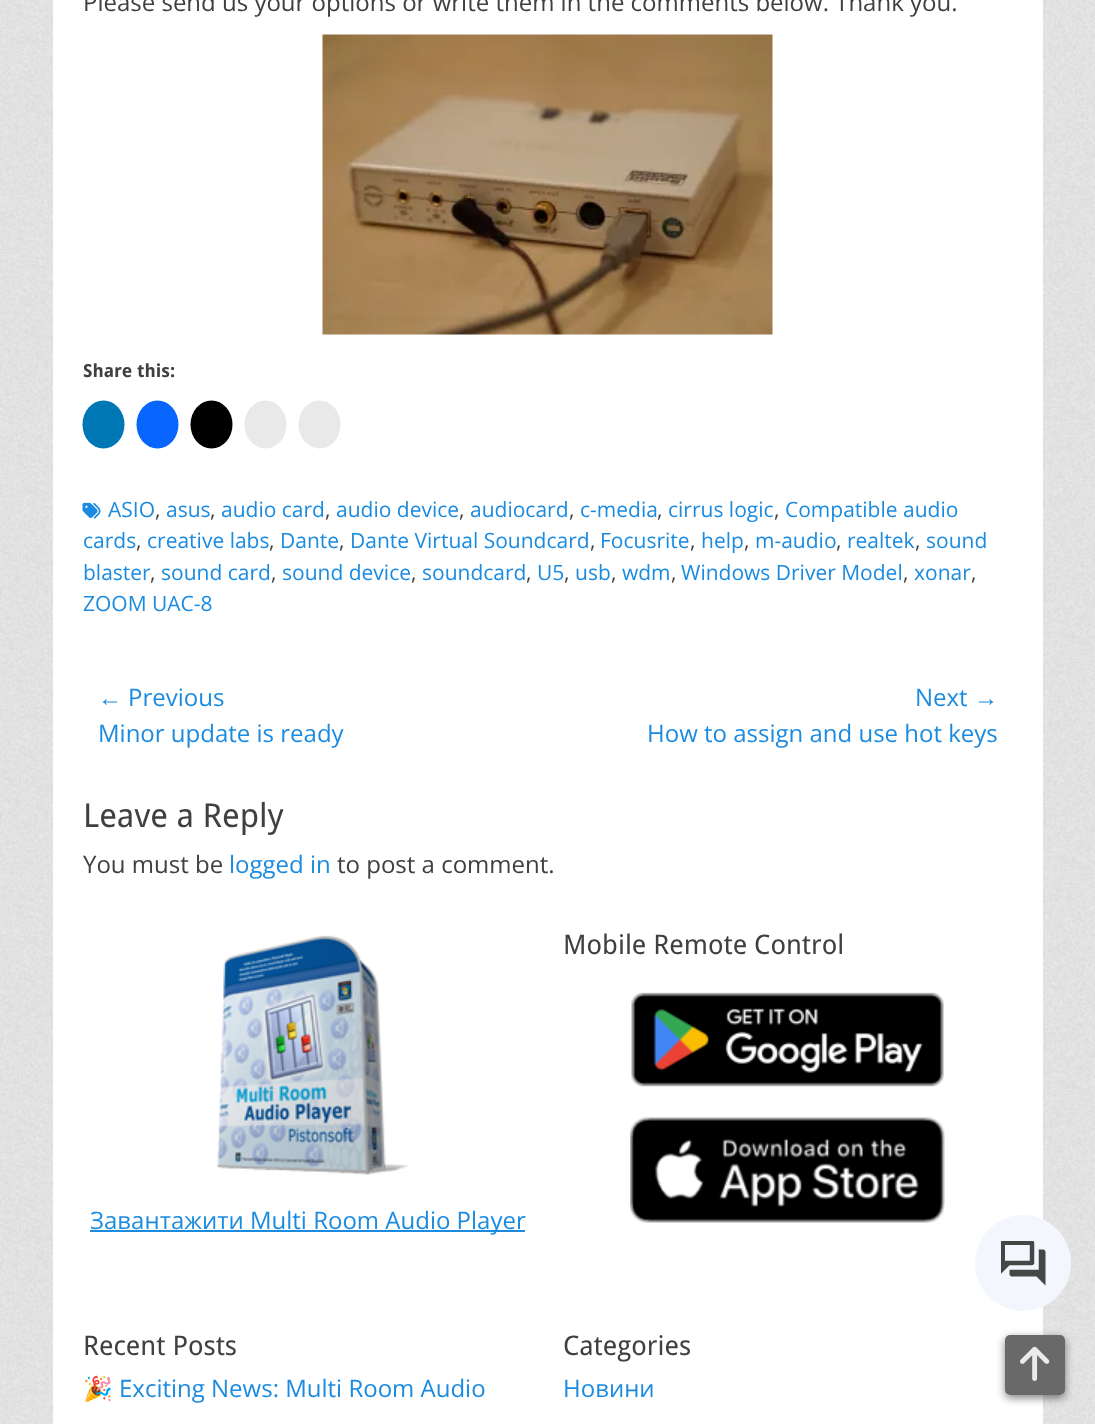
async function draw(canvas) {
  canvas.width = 1095
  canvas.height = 1424
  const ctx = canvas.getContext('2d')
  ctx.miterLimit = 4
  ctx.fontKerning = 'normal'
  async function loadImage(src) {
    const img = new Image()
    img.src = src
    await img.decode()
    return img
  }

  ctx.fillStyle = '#fff'
  ctx.fillRect(0, 0, 1095, 1424)
  ctx.drawImage(await loadImage('image0.png'), 0, 0, 1095, 1424)
  ctx.fillRect(53, 0, 990, 1424)
  ctx.font = '24px Open Sans'
  ctx.fillStyle = '#404040'
  ctx.fillText('Please send us your options or write them in the comments below. Thank you.', 83, 11)
  ctx.drawImage(await loadImage('image1.png'), 322, 34, 451, 301)
  ctx.font = 'bold 18px Droid Sans'
  ctx.fillText('Share this:', 83, 377)
  ctx.fillStyle = '#0077b5'
  ctx.beginPath()
  ctx.ellipse(103.5, 424.5, 21, 24, 0, 0, 2 * Math.PI)
  ctx.fill()
  ctx.fillStyle = '#0866ff'
  ctx.beginPath()
  ctx.ellipse(157.5, 424.5, 21, 24, 0, 0, 2 * Math.PI)
  ctx.fill()
  ctx.fillStyle = '#000'
  ctx.beginPath()
  ctx.ellipse(211.5, 424.5, 21, 24, 0, 0, 2 * Math.PI)
  ctx.fill()
  ctx.fillStyle = '#e9e9e9'
  ctx.beginPath()
  ctx.ellipse(265.5, 424.5, 21, 24, 0, 0, 2 * Math.PI)
  ctx.fill()
  ctx.beginPath()
  ctx.ellipse(319.5, 424.5, 21, 24, 0, 0, 2 * Math.PI)
  ctx.fill()
  ctx.drawImage(await loadImage('image2.png'), 82, 502, 19, 17)
  ctx.font = '21px Open Sans'
  ctx.fillStyle = '#1b8be0'
  ctx.fillText('ASIO', 108, 517)
  ctx.fillStyle = '#404040'
  ctx.fillText(',', 155, 517)
  ctx.fillStyle = '#1b8be0'
  ctx.fillText('asus', 166, 517)
  ctx.fillStyle = '#404040'
  ctx.fillText(',', 210, 517)
  ctx.fillStyle = '#1b8be0'
  ctx.fillText('audio card', 221, 517)
  ctx.fillStyle = '#404040'
  ctx.fillText(',', 325, 517)
  ctx.fillStyle = '#1b8be0'
  ctx.fillText('audio device', 336, 517)
  ctx.fillStyle = '#404040'
  ctx.fillText(',', 459, 517)
  ctx.fillStyle = '#1b8be0'
  ctx.fillText('audiocard', 470, 517)
  ctx.fillStyle = '#404040'
  ctx.fillText(',', 569, 517)
  ctx.fillStyle = '#1b8be0'
  ctx.fillText('c-media', 580, 517)
  ctx.fillStyle = '#404040'
  ctx.fillText(',', 657, 517)
  ctx.fillStyle = '#1b8be0'
  ctx.fillText('cirrus logic', 668, 517)
  ctx.fillStyle = '#404040'
  ctx.fillText(',', 774, 517)
  ctx.fillStyle = '#1b8be0'
  ctx.fillText('Compatible audio', 785, 517)
  ctx.fillText('cards', 83, 548)
  ctx.fillStyle = '#404040'
  ctx.fillText(',', 136, 548)
  ctx.fillStyle = '#1b8be0'
  ctx.fillText('creative labs', 147, 548)
  ctx.fillStyle = '#404040'
  ctx.fillText(',', 269, 548)
  ctx.fillStyle = '#1b8be0'
  ctx.fillText('Dante', 280, 548)
  ctx.fillStyle = '#404040'
  ctx.fillText(',', 339, 548)
  ctx.fillStyle = '#1b8be0'
  ctx.fillText('Dante Virtual Soundcard', 350, 548)
  ctx.fillStyle = '#404040'
  ctx.fillText(',', 590, 548)
  ctx.fillStyle = '#1b8be0'
  ctx.fillText('Focusrite', 600, 548)
  ctx.fillStyle = '#404040'
  ctx.fillText(',', 690, 548)
  ctx.fillStyle = '#1b8be0'
  ctx.fillText('help', 701, 548)
  ctx.fillStyle = '#404040'
  ctx.fillText(',', 744, 548)
  ctx.fillStyle = '#1b8be0'
  ctx.fillText('m-audio', 755, 548)
  ctx.fillStyle = '#404040'
  ctx.fillText(',', 836, 548)
  ctx.fillStyle = '#1b8be0'
  ctx.fillText('realtek', 847, 548)
  ctx.fillStyle = '#404040'
  ctx.fillText(',', 915, 548)
  ctx.fillStyle = '#1b8be0'
  ctx.fillText('sound', 926, 548)
  ctx.fillText('blaster', 83, 580)
  ctx.fillStyle = '#404040'
  ctx.fillText(',', 150, 580)
  ctx.fillStyle = '#1b8be0'
  ctx.fillText('sound card', 161, 580)
  ctx.fillStyle = '#404040'
  ctx.fillText(',', 271, 580)
  ctx.fillStyle = '#1b8be0'
  ctx.fillText('sound device', 282, 580)
  ctx.fillStyle = '#404040'
  ctx.fillText(',', 411, 580)
  ctx.fillStyle = '#1b8be0'
  ctx.fillText('soundcard', 422, 580)
  ctx.fillStyle = '#404040'
  ctx.fillText(',', 526, 580)
  ctx.fillStyle = '#1b8be0'
  ctx.fillText('U5', 537, 580)
  ctx.fillStyle = '#404040'
  ctx.fillText(',', 564, 580)
  ctx.fillStyle = '#1b8be0'
  ctx.fillText('usb', 575, 580)
  ctx.fillStyle = '#404040'
  ctx.fillText(',', 611, 580)
  ctx.fillStyle = '#1b8be0'
  ctx.fillText('wdm', 622, 580)
  ctx.fillStyle = '#404040'
  ctx.fillText(',', 671, 580)
  ctx.fillStyle = '#1b8be0'
  ctx.fillText('Windows Driver Model', 681, 580)
  ctx.fillStyle = '#404040'
  ctx.fillText(',', 903, 580)
  ctx.fillStyle = '#1b8be0'
  ctx.fillText('xonar', 914, 580)
  ctx.fillStyle = '#404040'
  ctx.fillText(',', 971, 580)
  ctx.fillStyle = '#1b8be0'
  ctx.fillText('ZOOM UAC-8', 83, 611)
  ctx.font = '24px Liberation Sans'
  ctx.fillText('←', 98, 706)
  ctx.font = '24px Open Sans'
  ctx.fillText('Previous', 128, 706)
  ctx.fillText('Minor update is ready', 98, 742)
  ctx.fillText('Next', 915, 706)
  ctx.font = '24px Liberation Sans'
  ctx.fillText('→', 974, 706)
  ctx.font = '24px Open Sans'
  ctx.fillText('How to assign and use hot keys', 647, 742)
  ctx.font = '33px Droid Sans'
  ctx.fillStyle = '#404040'
  ctx.fillText('Leave a Reply', 83, 827)
  ctx.font = '24px Open Sans'
  ctx.fillText('You must be', 83, 873)
  ctx.fillStyle = '#1b8be0'
  ctx.fillText('logged in', 229, 873)
  ctx.fillStyle = '#404040'
  ctx.fillText('to post a comment.', 337, 873)
  ctx.font = '27px Droid Sans'
  ctx.fillText('Mobile Remote Control', 563, 954)
  ctx.drawImage(await loadImage('image3.png'), 631, 992, 313, 95)
  ctx.drawImage(await loadImage('image4.png'), 630, 1117, 315, 106)
  ctx.drawImage(await loadImage('image5.png'), 217, 935, 192, 240)
  ctx.fillStyle = '#1b8be0'
  ctx.fillRect(90, 1230, 435, 2)
  ctx.font = '24px Open Sans'
  ctx.fillText('Завантажити Multi Room Audio Player', 90, 1229)
  ctx.font = '27px Droid Sans'
  ctx.fillStyle = '#404040'
  ctx.fillText('Recent Posts', 83, 1355)
  ctx.font = '24px Noto Color Emoji'
  ctx.fillStyle = '#1b8be0'
  ctx.fillText('🎉', 83, 1397)
  ctx.font = '24px Open Sans'
  ctx.fillText('Exciting News: Multi Room Audio', 119, 1397)
  ctx.font = '27px Droid Sans'
  ctx.fillStyle = '#404040'
  ctx.fillText('Categories', 563, 1355)
  ctx.font = '24px Open Sans'
  ctx.fillStyle = '#1b8be0'
  ctx.fillText('Новини', 563, 1397)
  ctx.fillStyle = '#f3f6fc'
  ctx.beginPath()
  ctx.arc(1023, 1263, 48, 0, 2 * Math.PI)
  ctx.fill()
  ctx.drawImage(await loadImage('image6.png'), 1001, 1241, 45, 45)
  ctx.save()
  ctx.beginPath()
  ctx.moveTo(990, 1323)
  ctx.lineTo(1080, 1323)
  ctx.lineTo(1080, 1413)
  ctx.lineTo(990, 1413)
  ctx.closePath()
  ctx.moveTo(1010, 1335)
  ctx.lineTo(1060, 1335)
  ctx.bezierCurveTo(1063, 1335, 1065, 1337, 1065, 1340)
  ctx.lineTo(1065, 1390)
  ctx.bezierCurveTo(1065, 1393, 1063, 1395, 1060, 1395)
  ctx.lineTo(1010, 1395)
  ctx.bezierCurveTo(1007, 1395, 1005, 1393, 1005, 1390)
  ctx.lineTo(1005, 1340)
  ctx.bezierCurveTo(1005, 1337, 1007, 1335, 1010, 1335)
  ctx.closePath()
  ctx.clip('evenodd')
  ctx.fillStyle = '#0000007d'
  ctx.filter = 'blur(4.5px)'
  ctx.beginPath()
  ctx.roundRect(1005, 1338, 60, 60, 5)
  ctx.fill()
  ctx.filter = 'none'
  ctx.restore()
  ctx.fillStyle = '#666666fa'
  ctx.beginPath()
  ctx.roundRect(1005, 1335, 60, 60, 5)
  ctx.fill()
  ctx.drawImage(await loadImage('image7.png'), 1020, 1346, 30, 35)
}

draw(document.querySelector('canvas'))
